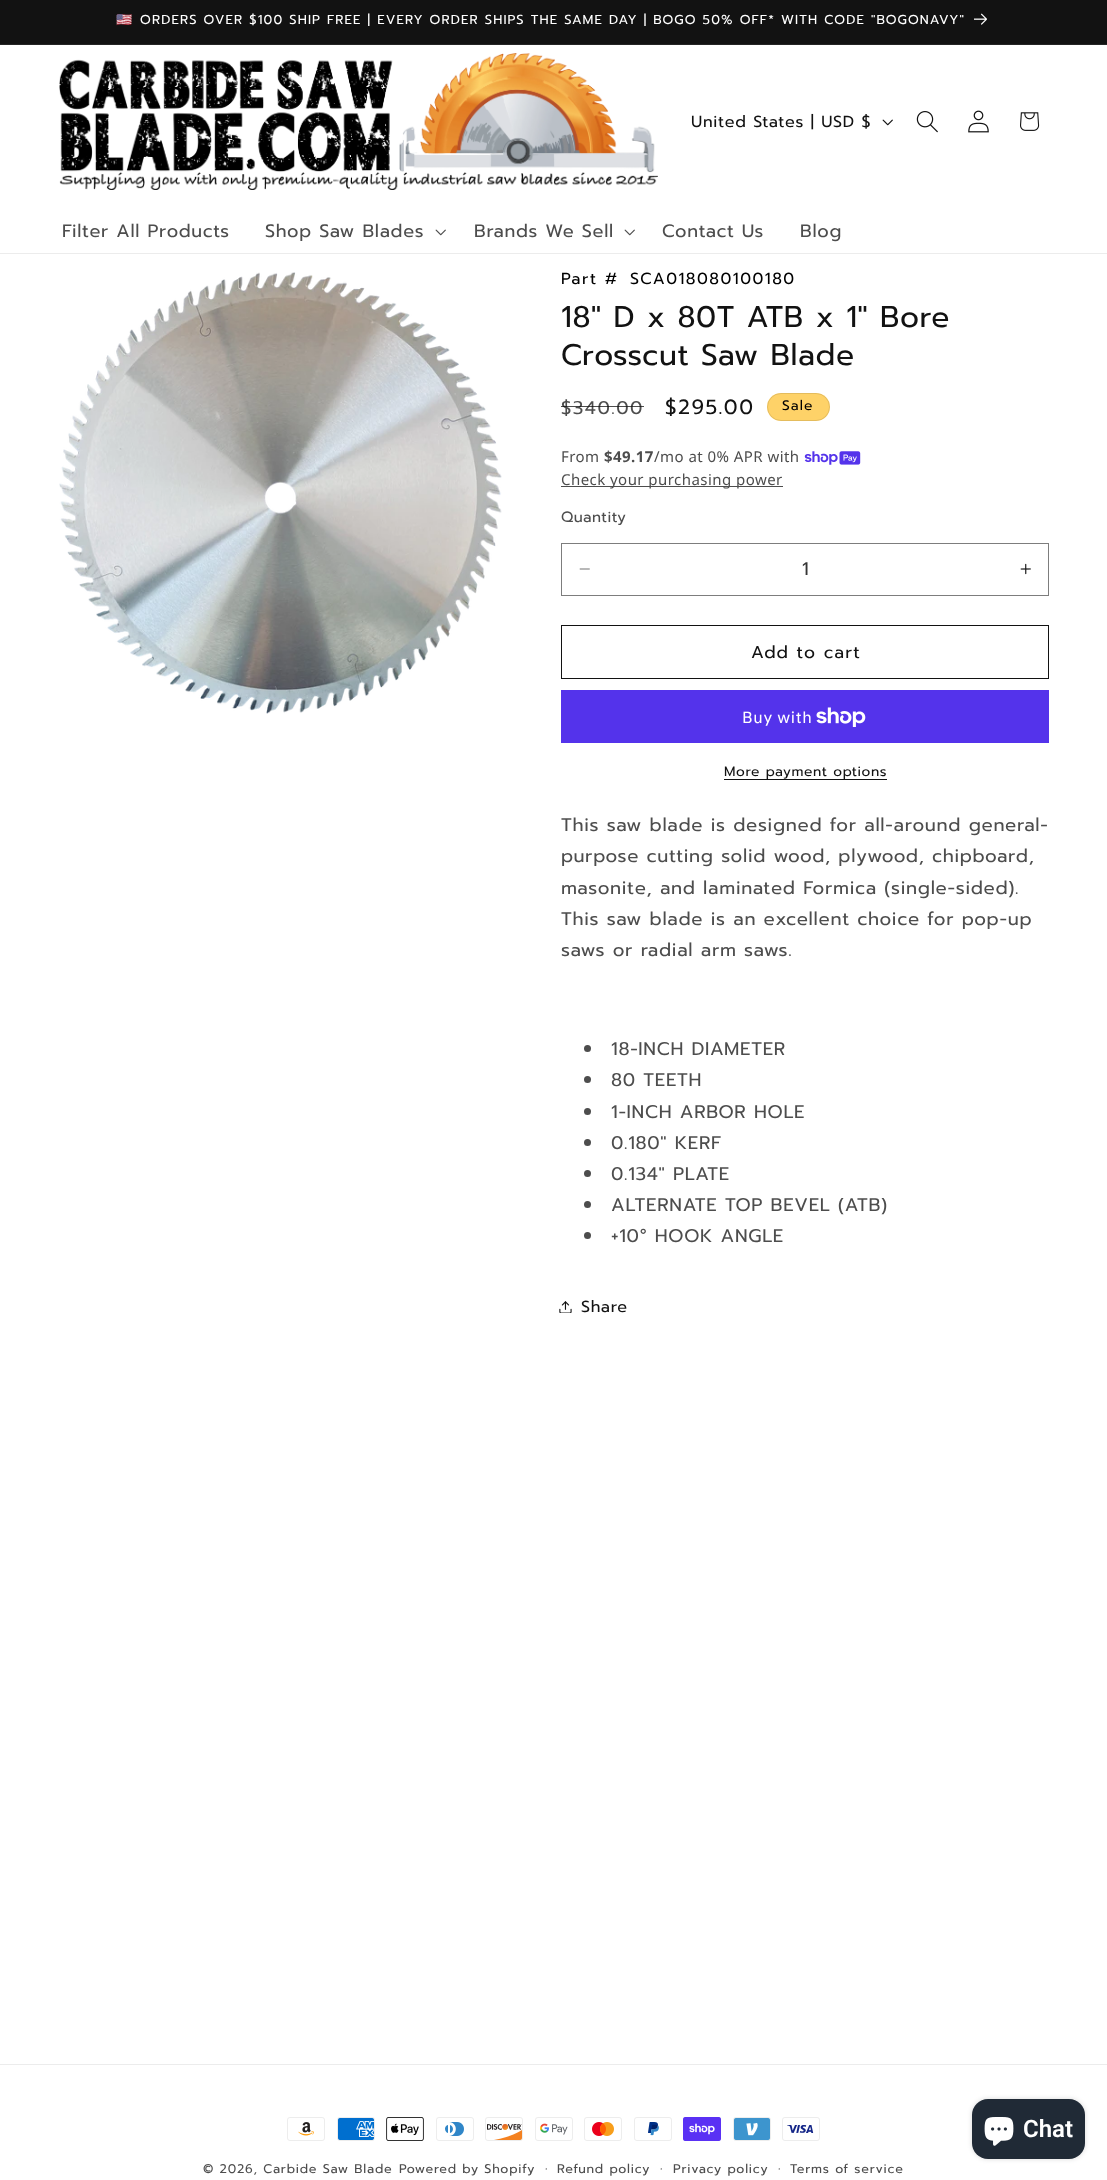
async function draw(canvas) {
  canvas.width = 1107
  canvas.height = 2180
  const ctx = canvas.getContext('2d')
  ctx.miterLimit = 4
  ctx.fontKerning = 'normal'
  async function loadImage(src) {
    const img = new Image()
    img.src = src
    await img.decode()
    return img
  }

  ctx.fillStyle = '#fff'
  ctx.fillRect(0, 0, 1107, 2180)
  ctx.fillStyle = '#121212'
  ctx.fillRect(0, 0, 1107, 44)
  ctx.fillStyle = '#252525'
  ctx.fillRect(0, 44, 1107, 1)
  ctx.letterSpacing = '1.15px'
  ctx.font = '13px Noto Color Emoji'
  ctx.fillStyle = '#fff'
  ctx.fillText('🇺🇸', 116, 24)
  ctx.font = '13px Prompt'
  ctx.fillText('ORDERS OVER $100 SHIP FREE | EVERY ORDER SHIPS THE SAME DAY | BOGO 50% OFF* WITH CODE "BOGONAVY"', 140, 24)
  ctx.drawImage(await loadImage('image0.png'), 974, 13, 13, 12)
  ctx.fillStyle = '#ececec'
  ctx.fillRect(0, 253, 1107, 1)
  ctx.drawImage(await loadImage('image1.png'), 59, 53, 599, 137)
  ctx.letterSpacing = '0.7px'
  ctx.font = '16.1px Prompt'
  ctx.fillStyle = '#121212'
  ctx.fillText('United States | USD $', 691, 127)
  ctx.drawImage(await loadImage('image2.png'), 882, 119, 11, 7)
  ctx.drawImage(await loadImage('image3.png'), 916, 111, 22, 22)
  ctx.drawImage(await loadImage('image4.png'), 968, 110, 21, 23)
  ctx.drawImage(await loadImage('image5.png'), 1020, 112, 20, 19)
  ctx.font = '18px Prompt'
  ctx.fillStyle = '#4d4d4d'
  ctx.fillText('Filter All Products', 62, 237)
  ctx.fillText('Shop Saw Blades', 265, 237)
  ctx.drawImage(await loadImage('image6.png'), 435, 229, 11, 7)
  ctx.fillText('Brands We Sell', 474, 237)
  ctx.drawImage(await loadImage('image6.png'), 624, 229, 11, 7)
  ctx.fillText('Contact Us', 662, 237)
  ctx.fillText('Blog', 800, 237)
  ctx.drawImage(await loadImage('image7.png'), 59, 272, 443, 442)
  ctx.letterSpacing = '1.5px'
  ctx.font = '16.1px Prompt'
  ctx.fillStyle = '#000'
  ctx.fillText('Part #', 561, 284)
  ctx.fillText('SCA018080100180', 630, 284)
  ctx.letterSpacing = '0.6px'
  ctx.font = '29.9px Prompt'
  ctx.fillStyle = '#121212'
  ctx.fillText('18" D x 80T ATB x 1" Bore', 561, 327)
  ctx.fillText('Crosscut Saw Blade', 561, 365)
  ctx.letterSpacing = '1.5px'
  ctx.font = '18.4px Prompt'
  ctx.fillStyle = '#4d4d4d'
  ctx.fillText('$340.00', 561, 414)
  ctx.fillStyle = '#121212bf'
  ctx.fillRect(561, 406, 83, 1)
  ctx.font = '20.5px Prompt'
  ctx.fillStyle = '#121212'
  ctx.fillText('$295.00', 665, 414)
  ctx.fillStyle = '#fed268'
  ctx.beginPath()
  ctx.roundRect(767, 393, 63, 28, 14)
  ctx.fill()
  ctx.beginPath()
  ctx.roundRect(767.5, 393.5, 62, 27, 13.5)
  ctx.strokeStyle = '#0000001a'
  ctx.stroke()
  ctx.letterSpacing = '1.15px'
  ctx.font = '13.75px Prompt'
  ctx.fillStyle = '#000'
  ctx.fillText('Sale', 782, 410)
  ctx.letterSpacing = '0.45px'
  ctx.font = '15px Noto Sans'
  ctx.fillStyle = '#4d4d4d'
  ctx.fillText('From', 561, 462)
  ctx.font = 'bold 15px Noto Sans'
  ctx.fillText('$49.17', 604, 462)
  ctx.font = '15px Noto Sans'
  ctx.fillText('/mo at 0% APR with', 654, 462)
  ctx.drawImage(await loadImage('image8.png'), 804, 451, 57, 14)
  ctx.fillRect(561, 486, 222, 1)
  ctx.fillText('Check your purchasing power', 561, 485)
  ctx.font = '15px Prompt'
  ctx.fillText('Quantity', 561, 522)
  ctx.drawImage(await loadImage('image9.png'), 579, 568, 11, 2)
  ctx.drawImage(await loadImage('image10.png'), 1020, 563, 11, 12)
  ctx.strokeStyle = '#7d7d7d'
  ctx.strokeRect(561.5, 543.5, 487, 52)
  ctx.letterSpacing = '0px'
  ctx.font = '18.4px Prompt'
  ctx.fillStyle = '#363636'
  ctx.fillText('1', 802, 575)
  ctx.strokeStyle = '#121212'
  ctx.strokeRect(561.5, 625.5, 487, 53)
  ctx.letterSpacing = '1.15px'
  ctx.font = '17.25px Prompt'
  ctx.fillStyle = '#121212'
  ctx.fillText('Add to cart', 751, 658)
  ctx.fillStyle = '#5433eb'
  ctx.fillRect(561, 690, 488, 53)
  ctx.letterSpacing = '0.7px'
  ctx.font = '16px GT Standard'
  ctx.fillStyle = '#fff'
  ctx.fillText('Buy with', 742, 723)
  ctx.drawImage(await loadImage('image11.png'), 816, 707, 50, 20)
  ctx.letterSpacing = '0.6px'
  ctx.font = '13.75px Prompt'
  ctx.fillStyle = '#121212'
  ctx.fillText('More payment options', 724, 776)
  ctx.fillRect(724, 779, 163, 1)
  ctx.letterSpacing = '0.7px'
  ctx.font = '18.4px Prompt'
  ctx.fillStyle = '#4d4d4d'
  ctx.fillText('This saw blade is designed for all-around general-', 561, 831)
  ctx.fillText('purpose cutting solid wood, plywood, chipboard,', 561, 862)
  ctx.fillText('masonite, and laminated Formica (single-sided).', 561, 894)
  ctx.fillText('This saw blade is an excellent choice for pop-up', 561, 925)
  ctx.fillText('saws or radial arm saws.', 561, 956)
  ctx.beginPath()
  ctx.arc(587.5, 1048.5, 3.5, 0, 2 * Math.PI)
  ctx.fill()
  ctx.fillText('18-INCH DIAMETER', 611, 1055)
  ctx.beginPath()
  ctx.arc(587.5, 1079.5, 3.5, 0, 2 * Math.PI)
  ctx.fill()
  ctx.fillText('80 TEETH', 611, 1086)
  ctx.beginPath()
  ctx.arc(587.5, 1111.5, 3.5, 0, 2 * Math.PI)
  ctx.fill()
  ctx.fillText('1-INCH ARBOR HOLE', 611, 1118)
  ctx.beginPath()
  ctx.arc(587.5, 1142.5, 3.5, 0, 2 * Math.PI)
  ctx.fill()
  ctx.fillText('0.180" KERF', 611, 1149)
  ctx.beginPath()
  ctx.arc(587.5, 1173.5, 3.5, 0, 2 * Math.PI)
  ctx.fill()
  ctx.fillText('0.134" PLATE', 611, 1180)
  ctx.beginPath()
  ctx.arc(587.5, 1204.5, 3.5, 0, 2 * Math.PI)
  ctx.fill()
  ctx.fillText('ALTERNATE TOP BEVEL (ATB)', 611, 1211)
  ctx.beginPath()
  ctx.arc(587.5, 1235.5, 3.5, 0, 2 * Math.PI)
  ctx.fill()
  ctx.fillText('+10° HOOK ANGLE', 611, 1242)
  ctx.drawImage(await loadImage('image12.png'), 559, 1301, 13, 12)
  ctx.font = '16.1px Prompt'
  ctx.fillStyle = '#121212'
  ctx.fillText('Share', 581, 1312)
  ctx.fillStyle = '#00000026'
  ctx.filter = 'blur(2.5px)'
  ctx.beginPath()
  ctx.roundRect(972, 2099, 113, 60, 16)
  ctx.fill()
  ctx.filter = 'none'
  ctx.fillStyle = '#202a36'
  ctx.beginPath()
  ctx.roundRect(972, 2099, 113, 60, 16)
  ctx.fill()
  ctx.drawImage(await loadImage('image13.png'), 984, 2117, 30, 29)
  ctx.letterSpacing = '0px'
  ctx.font = '600 24px Roboto'
  ctx.fillStyle = '#fff'
  ctx.fillText('Chat', 1023, 2137)
  ctx.fillStyle = '#ececec'
  ctx.fillRect(0, 2064, 1107, 1)
  ctx.drawImage(await loadImage('image14.png'), 287, 2117, 38, 24)
  ctx.drawImage(await loadImage('image15.png'), 337, 2117, 38, 24)
  ctx.drawImage(await loadImage('image16.png'), 386, 2117, 38, 24)
  ctx.drawImage(await loadImage('image17.png'), 436, 2117, 38, 24)
  ctx.drawImage(await loadImage('image18.png'), 485, 2117, 38, 24)
  ctx.drawImage(await loadImage('image19.png'), 535, 2117, 38, 24)
  ctx.drawImage(await loadImage('image20.png'), 584, 2117, 38, 24)
  ctx.drawImage(await loadImage('image21.png'), 634, 2117, 38, 24)
  ctx.drawImage(await loadImage('image22.png'), 683, 2117, 38, 24)
  ctx.drawImage(await loadImage('image23.png'), 733, 2117, 38, 24)
  ctx.drawImage(await loadImage('image24.png'), 782, 2117, 38, 24)
  ctx.letterSpacing = '0.8px'
  ctx.font = '12.6px Prompt'
  ctx.fillStyle = '#4d4d4d'
  ctx.fillText('© 2026, Carbide Saw Blade', 203, 2173)
  ctx.fillText('Powered by Shopify', 399, 2173)
  ctx.font = '13.75px Prompt'
  ctx.fillText('·', 545, 2173)
  ctx.font = '12.6px Prompt'
  ctx.fillText('Refund policy', 557, 2173)
  ctx.font = '13.75px Prompt'
  ctx.fillText('·', 660, 2173)
  ctx.font = '12.6px Prompt'
  ctx.fillText('Privacy policy', 673, 2173)
  ctx.font = '13.75px Prompt'
  ctx.fillText('·', 778, 2173)
  ctx.font = '12.6px Prompt'
  ctx.fillText('Terms of service', 790, 2173)
}

draw(document.querySelector('canvas'))
